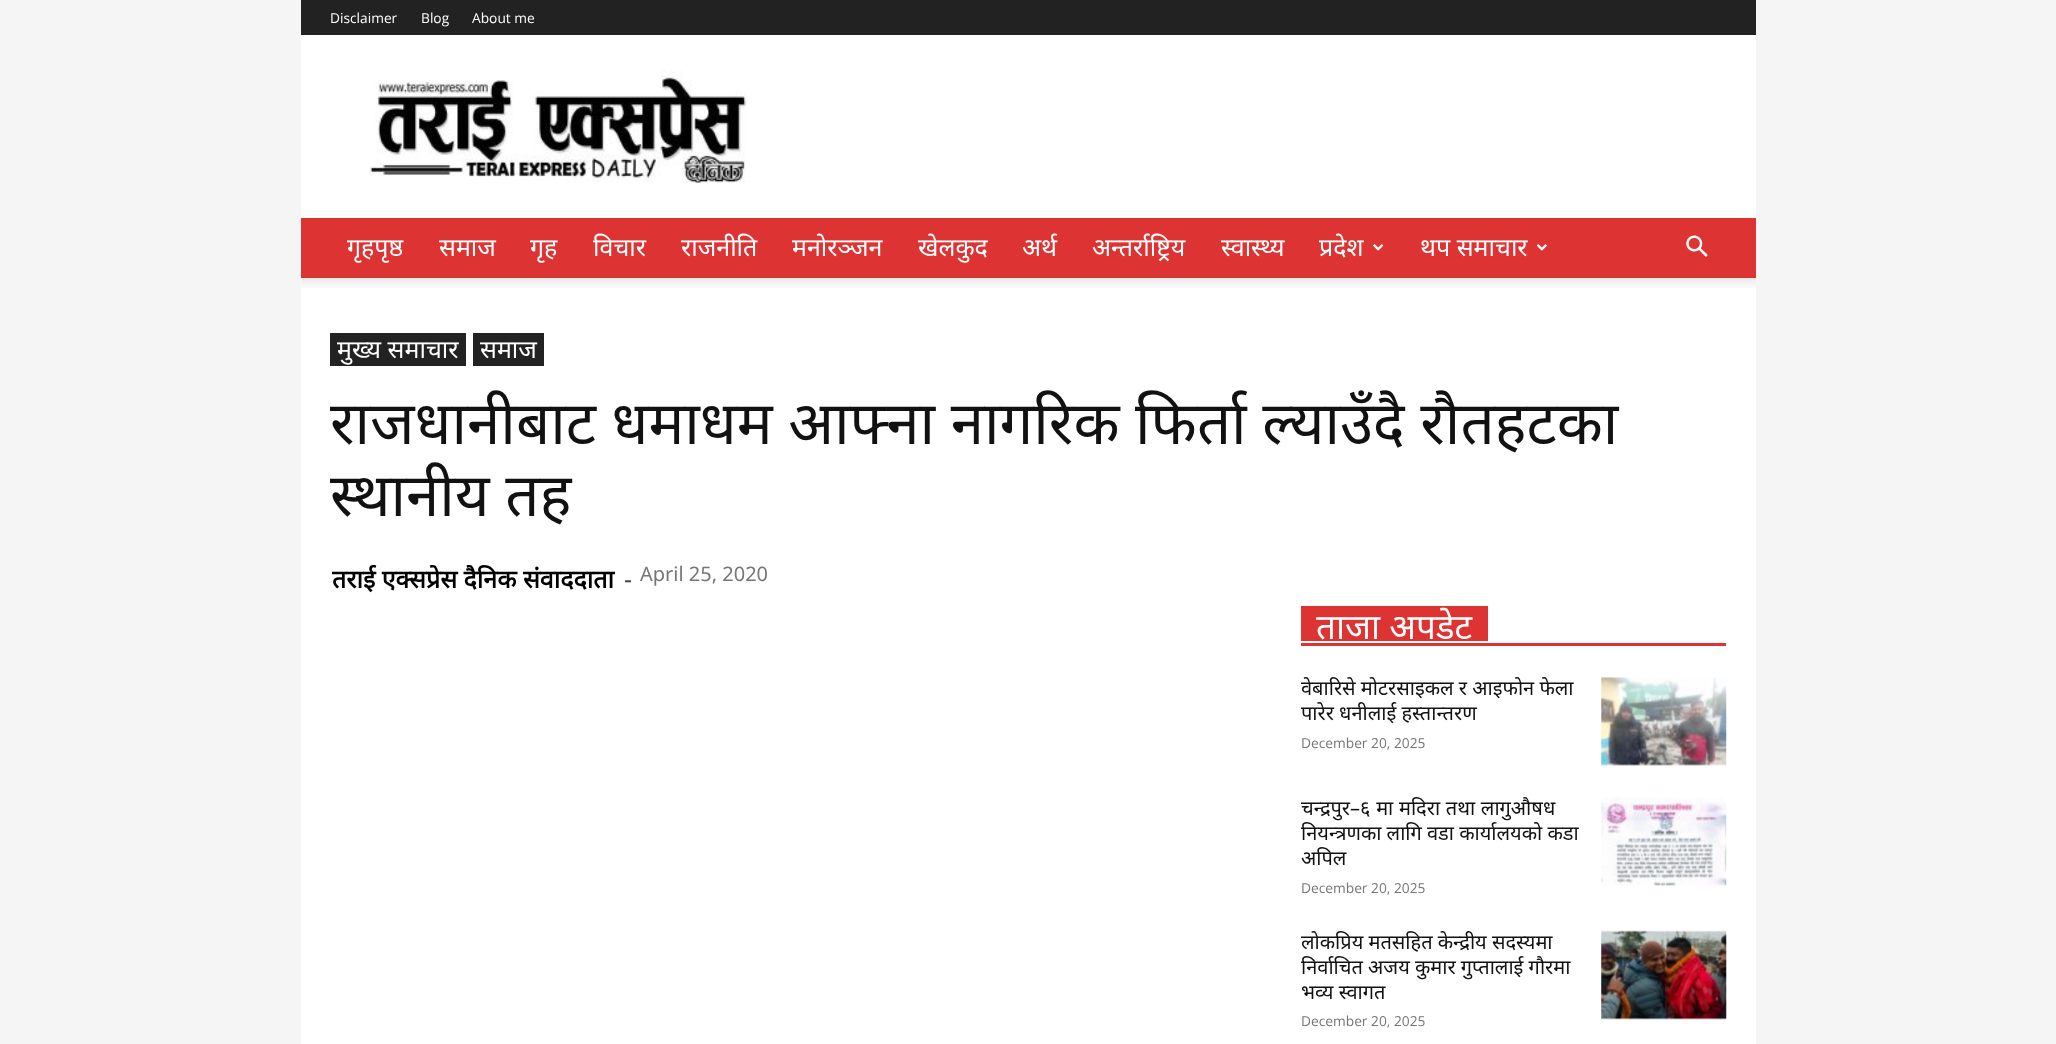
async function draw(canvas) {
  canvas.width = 2056
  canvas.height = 1044
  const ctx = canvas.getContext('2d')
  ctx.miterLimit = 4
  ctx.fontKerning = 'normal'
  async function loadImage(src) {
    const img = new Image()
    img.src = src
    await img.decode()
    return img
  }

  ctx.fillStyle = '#f5f5f5'
  ctx.fillRect(0, 0, 2056, 1044)
  ctx.fillStyle = '#222'
  ctx.fillRect(301, 0, 1455, 35)
  ctx.font = '13.75px Open Sans'
  ctx.fillStyle = '#fff'
  ctx.fillText('Disclaimer', 330, 23)
  ctx.fillText('Blog', 421, 23)
  ctx.fillText('About me', 472, 23)
  ctx.fillRect(301, 35, 1455, 183)
  ctx.drawImage(await loadImage('image0.png'), 368, 70, 379, 113)
  ctx.fillStyle = '#d33'
  ctx.fillRect(301, 218, 1455, 60)
  ctx.font = '25px Noto Sans'
  ctx.fillStyle = '#fff'
  ctx.fillText('गृहपृष्ठ', 347, 256)
  ctx.fillText('समाज', 439, 256)
  ctx.fillText('गृह', 530, 256)
  ctx.fillText('विचार', 593, 256)
  ctx.fillText('राजनीति', 681, 256)
  ctx.fillText('मनोरञ्जन', 792, 256)
  ctx.fillText('खेलकुद', 918, 256)
  ctx.fillText('अर्थ', 1022, 256)
  ctx.fillText('अन्तर्राष्ट्रिय', 1092, 256)
  ctx.fillText('स्वास्थ्य', 1221, 256)
  ctx.fillText('प्रदेश', 1319, 256)
  ctx.drawImage(await loadImage('image1.png'), 1373, 244, 11, 7)
  ctx.fillText('थप समाचार', 1420, 256)
  ctx.drawImage(await loadImage('image2.png'), 1536, 244, 11, 7)
  ctx.drawImage(await loadImage('image3.png'), 1686, 235, 22, 22)
  ctx.fillRect(301, 278, 1455, 766)
  ctx.drawImage(await loadImage('image4.png'), 301, 277, 1455, 11)
  ctx.fillStyle = '#222'
  ctx.fillRect(330, 333, 136, 33)
  ctx.fillStyle = '#fff'
  ctx.fillText('मुख्य समाचार', 337, 358)
  ctx.fillStyle = '#222'
  ctx.fillRect(473, 333, 71, 33)
  ctx.fillStyle = '#fff'
  ctx.fillText('समाज', 480, 358)
  ctx.font = '60px Noto Sans'
  ctx.fillStyle = '#111'
  ctx.fillText('राजधानीबाट धमाधम आफ्ना नागरिक फिर्ता ल्याउँदै रौतहटका', 330, 444)
  ctx.fillText('स्थानीय तह', 330, 516)
  ctx.font = 'bold 25px Noto Sans'
  ctx.fillStyle = '#000'
  ctx.fillText('तराई एक्सप्रेस दैनिक संवाददाता', 332, 588)
  ctx.font = '25px Noto Sans'
  ctx.fillStyle = '#444'
  ctx.fillText('-', 624, 588)
  ctx.font = '20px Noto Sans'
  ctx.fillStyle = '#767676'
  ctx.fillText('April 25, 2020', 640, 581)
  ctx.fillStyle = '#d33'
  ctx.fillRect(1301, 643, 425, 3)
  ctx.fillRect(1301, 606, 187, 35)
  ctx.font = '35px Noto Sans'
  ctx.fillStyle = '#fff'
  ctx.fillText('ताजा अपडेट', 1316, 639)
  ctx.font = '20px "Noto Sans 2"'
  ctx.fillStyle = '#111'
  ctx.fillText('वेबारिसे मोटरसाइकल र आइफोन फेला', 1301, 695)
  ctx.fillText('पारेर धनीलाई हस्तान्तरण', 1301, 720)
  ctx.font = '13.75px Open Sans'
  ctx.fillStyle = '#767676'
  ctx.fillText('December 20, 2025', 1301, 748)
  ctx.drawImage(await loadImage('image5.png'), 1601, 677, 126, 89)
  ctx.wordSpacing = '0.5px'
  ctx.font = '20px "Noto Sans 2"'
  ctx.fillStyle = '#111'
  ctx.fillText('चन्द्रपुर–६ मा मदिरा तथा लागुऔषध', 1301, 815)
  ctx.wordSpacing = '0px'
  ctx.fillText('नियन्त्रणका लागि वडा कार्यालयको कडा', 1301, 840)
  ctx.fillText('अपिल', 1301, 865)
  ctx.font = '13.75px Open Sans'
  ctx.fillStyle = '#767676'
  ctx.fillText('December 20, 2025', 1301, 893)
  ctx.drawImage(await loadImage('image6.png'), 1601, 797, 126, 89)
  ctx.font = '20px "Noto Sans 2"'
  ctx.fillStyle = '#111'
  ctx.fillText('लोकप्रिय मतसहित केन्द्रीय सदस्यमा', 1301, 949)
  ctx.fillText('निर्वाचित अजय कुमार गुप्तालाई गौरमा', 1301, 974)
  ctx.fillText('भव्य स्वागत', 1301, 999)
  ctx.font = '13.75px Open Sans'
  ctx.fillStyle = '#767676'
  ctx.fillText('December 20, 2025', 1301, 1026)
  ctx.drawImage(await loadImage('image7.png'), 1601, 930, 126, 90)
}

draw(document.querySelector('canvas'))
